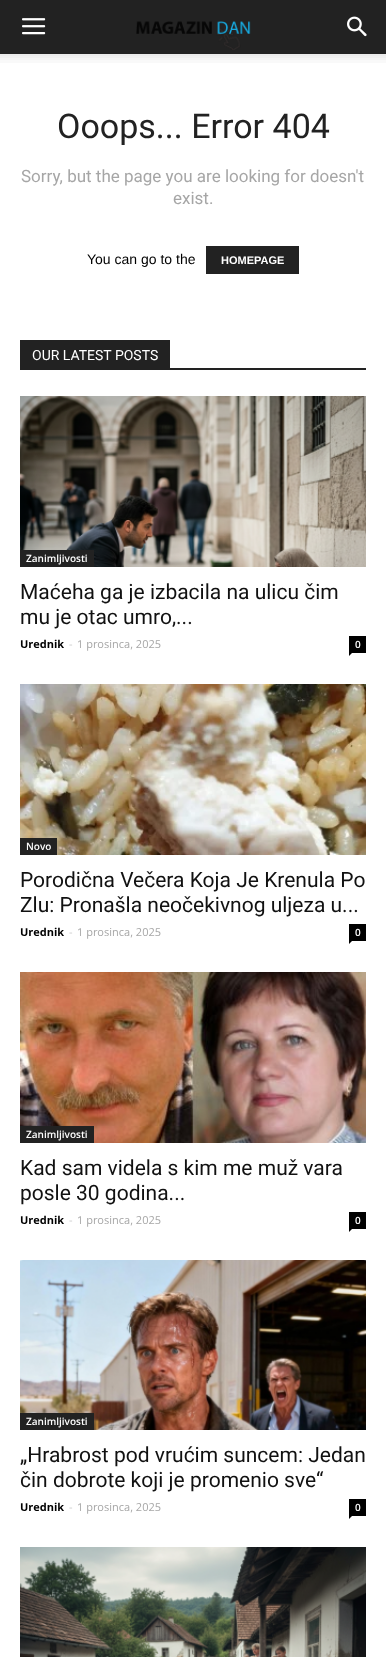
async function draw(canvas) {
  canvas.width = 386
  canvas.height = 1657
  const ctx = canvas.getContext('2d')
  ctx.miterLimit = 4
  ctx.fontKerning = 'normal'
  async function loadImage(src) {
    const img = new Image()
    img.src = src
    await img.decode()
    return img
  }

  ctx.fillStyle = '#fff'
  ctx.fillRect(0, 0, 386, 1657)
  ctx.fillStyle = '#222'
  ctx.fillRect(0, 0, 386, 54)
  ctx.drawImage(await loadImage('image0.png'), 22, 18, 24, 17)
  ctx.drawImage(await loadImage('image1.png'), 136, 21, 115, 29)
  ctx.drawImage(await loadImage('image2.png'), 347, 16, 20, 21)
  ctx.drawImage(await loadImage('image3.png'), 0, 54, 386, 9)
  ctx.font = '34px Roboto'
  ctx.fillText('Ooops... Error 404', 57, 138)
  ctx.font = '17px Roboto'
  ctx.fillStyle = '#a6a6a6'
  ctx.fillText('Sorry, but the page you are looking for doesn\'t', 21, 182)
  ctx.fillText('exist.', 173, 204)
  ctx.font = '14px Liberation Sans'
  ctx.fillStyle = '#000'
  ctx.fillText('You can go to the', 87, 264)
  ctx.fillStyle = '#222'
  ctx.fillRect(206, 246, 93, 28)
  ctx.font = 'bold 11px Liberation Sans'
  ctx.fillStyle = '#fff'
  ctx.fillText('HOMEPAGE', 221, 264)
  ctx.fillStyle = '#222'
  ctx.fillRect(20, 368, 346, 2)
  ctx.fillRect(20, 340, 150, 28)
  ctx.font = '14px Roboto'
  ctx.fillStyle = '#fff'
  ctx.fillText('OUR LATEST POSTS', 32, 360)
  ctx.drawImage(await loadImage('image4.png'), 20, 396, 346, 171)
  ctx.fillStyle = '#222'
  ctx.fillRect(20, 550, 74, 17)
  ctx.font = '600 10px Open Sans'
  ctx.fillStyle = '#fff'
  ctx.fillText('Zanimljivosti', 26, 562)
  ctx.font = '21px Roboto'
  ctx.fillStyle = '#111'
  ctx.fillText('Maćeha ga je izbacila na ulicu čim', 20, 599)
  ctx.fillText('mu je otac umro,...', 20, 624)
  ctx.font = 'bold 11px Open Sans'
  ctx.fillStyle = '#000'
  ctx.fillText('Urednik', 20, 648)
  ctx.font = '11px Open Sans'
  ctx.fillStyle = '#ccc'
  ctx.fillText('-', 69, 648)
  ctx.fillStyle = '#a6a6a6'
  ctx.fillText('1 prosinca, 2025', 77, 648)
  ctx.fillStyle = '#000'
  ctx.fillRect(349, 636, 17, 17)
  ctx.font = '600 10px Open Sans'
  ctx.fillStyle = '#fff'
  ctx.fillText('0', 355, 648)
  ctx.fillStyle = '#000'
  ctx.beginPath()
  ctx.moveTo(349, 653)
  ctx.lineTo(352, 653)
  ctx.lineTo(349, 656)
  ctx.closePath()
  ctx.fill()
  ctx.drawImage(await loadImage('image5.png'), 20, 684, 346, 171)
  ctx.fillStyle = '#222'
  ctx.fillRect(20, 838, 37, 17)
  ctx.fillStyle = '#fff'
  ctx.fillText('Novo', 26, 850)
  ctx.font = '21px Roboto'
  ctx.fillStyle = '#111'
  ctx.fillText('Porodična Večera Koja Je Krenula Po', 20, 887)
  ctx.fillText('Zlu: Pronašla neočekivnog uljeza u...', 20, 912)
  ctx.font = 'bold 11px Open Sans'
  ctx.fillStyle = '#000'
  ctx.fillText('Urednik', 20, 936)
  ctx.font = '11px Open Sans'
  ctx.fillStyle = '#ccc'
  ctx.fillText('-', 69, 936)
  ctx.fillStyle = '#a6a6a6'
  ctx.fillText('1 prosinca, 2025', 77, 936)
  ctx.fillStyle = '#000'
  ctx.fillRect(349, 924, 17, 17)
  ctx.font = '600 10px Open Sans'
  ctx.fillStyle = '#fff'
  ctx.fillText('0', 355, 936)
  ctx.fillStyle = '#000'
  ctx.beginPath()
  ctx.moveTo(349, 941)
  ctx.lineTo(352, 941)
  ctx.lineTo(349, 944)
  ctx.closePath()
  ctx.fill()
  ctx.drawImage(await loadImage('image6.png'), 20, 972, 346, 171)
  ctx.fillStyle = '#222'
  ctx.fillRect(20, 1126, 74, 17)
  ctx.fillStyle = '#fff'
  ctx.fillText('Zanimljivosti', 26, 1138)
  ctx.font = '21px Roboto'
  ctx.fillStyle = '#111'
  ctx.fillText('Kad sam videla s kim me muž vara', 20, 1175)
  ctx.fillText('posle 30 godina...', 20, 1200)
  ctx.font = 'bold 11px Open Sans'
  ctx.fillStyle = '#000'
  ctx.fillText('Urednik', 20, 1224)
  ctx.font = '11px Open Sans'
  ctx.fillStyle = '#ccc'
  ctx.fillText('-', 69, 1224)
  ctx.fillStyle = '#a6a6a6'
  ctx.fillText('1 prosinca, 2025', 77, 1224)
  ctx.fillStyle = '#000'
  ctx.fillRect(349, 1212, 17, 17)
  ctx.font = '600 10px Open Sans'
  ctx.fillStyle = '#fff'
  ctx.fillText('0', 355, 1224)
  ctx.fillStyle = '#000'
  ctx.beginPath()
  ctx.moveTo(349, 1229)
  ctx.lineTo(352, 1229)
  ctx.lineTo(349, 1232)
  ctx.closePath()
  ctx.fill()
  ctx.drawImage(await loadImage('image7.png'), 20, 1260, 346, 170)
  ctx.fillStyle = '#222'
  ctx.fillRect(20, 1413, 74, 17)
  ctx.fillStyle = '#fff'
  ctx.fillText('Zanimljivosti', 26, 1425)
  ctx.font = '21px Roboto'
  ctx.fillStyle = '#111'
  ctx.fillText('„Hrabrost pod vrućim suncem: Jedan', 20, 1462)
  ctx.fillText('čin dobrote koji je promenio sve“', 20, 1487)
  ctx.font = 'bold 11px Open Sans'
  ctx.fillStyle = '#000'
  ctx.fillText('Urednik', 20, 1511)
  ctx.font = '11px Open Sans'
  ctx.fillStyle = '#ccc'
  ctx.fillText('-', 69, 1511)
  ctx.fillStyle = '#a6a6a6'
  ctx.fillText('1 prosinca, 2025', 77, 1511)
  ctx.fillStyle = '#000'
  ctx.fillRect(349, 1499, 17, 17)
  ctx.font = '600 10px Open Sans'
  ctx.fillStyle = '#fff'
  ctx.fillText('0', 355, 1511)
  ctx.fillStyle = '#000'
  ctx.beginPath()
  ctx.moveTo(349, 1516)
  ctx.lineTo(352, 1516)
  ctx.lineTo(349, 1519)
  ctx.closePath()
  ctx.fill()
  ctx.drawImage(await loadImage('image8.png'), 20, 1547, 346, 110)
}

draw(document.querySelector('canvas'))
